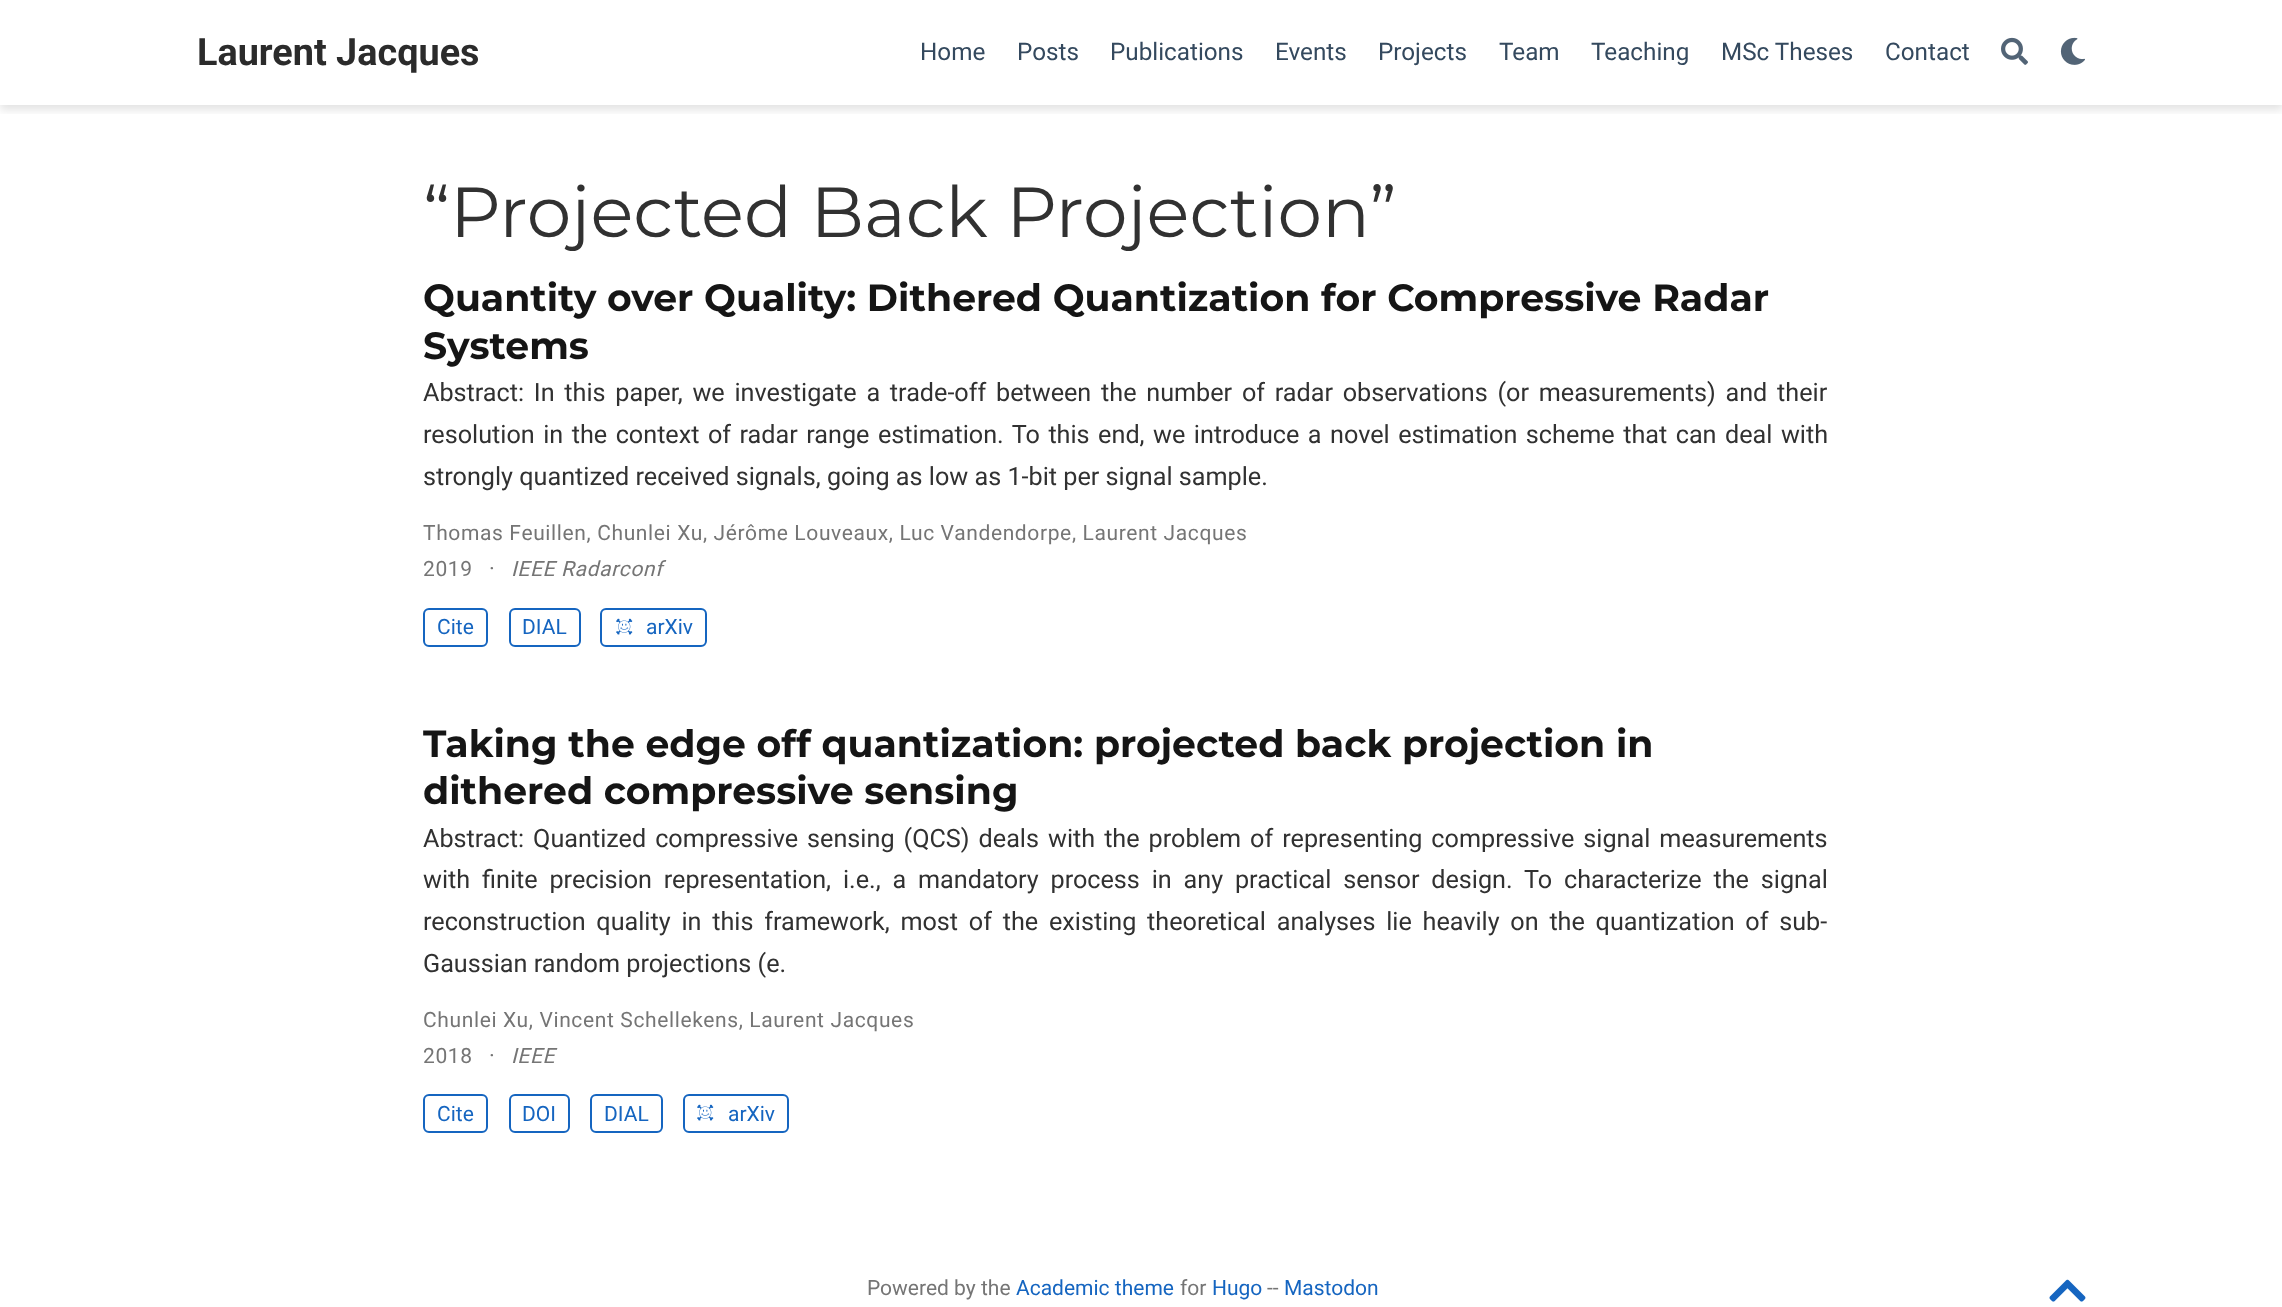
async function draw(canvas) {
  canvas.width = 2282
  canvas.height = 1307
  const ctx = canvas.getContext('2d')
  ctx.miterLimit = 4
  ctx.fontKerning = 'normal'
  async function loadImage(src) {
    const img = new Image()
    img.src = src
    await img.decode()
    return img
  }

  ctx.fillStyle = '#fff'
  ctx.fillRect(0, 0, 2282, 1307)
  ctx.save()
  ctx.beginPath()
  ctx.rect(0, 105, 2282, 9)
  ctx.clip()
  ctx.fillStyle = '#0000001c'
  ctx.filter = 'blur(4px)'
  ctx.beginPath()
  ctx.rect(0, 5, 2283, 105)
  ctx.fill()
  ctx.filter = 'none'
  ctx.restore()
  ctx.font = 'bold 37.8px Roboto'
  ctx.fillStyle = '#2b2b2b'
  ctx.fillText('Laurent Jacques', 197, 65)
  ctx.font = '24.25px Roboto'
  ctx.fillStyle = '#34495e'
  ctx.fillText('Home', 920, 60)
  ctx.fillText('Posts', 1017, 60)
  ctx.fillText('Publications', 1110, 60)
  ctx.fillText('Events', 1275, 60)
  ctx.fillText('Projects', 1378, 60)
  ctx.fillText('Team', 1499, 60)
  ctx.fillText('Teaching', 1591, 60)
  ctx.fillText('MSc Theses', 1721, 60)
  ctx.fillText('Contact', 1885, 60)
  ctx.drawImage(await loadImage('image0.png'), 2001, 37, 27, 28)
  ctx.drawImage(await loadImage('image1.png'), 2060, 37, 25, 28)
  ctx.font = '70.9px Montserrat'
  ctx.fillStyle = '#313131'
  ctx.fillText('“Projected Back Projection”', 423, 237)
  ctx.font = 'bold 37.8px Montserrat'
  ctx.fillStyle = '#151515'
  ctx.fillText('Quantity over Quality: Dithered Quantization for Compressive Radar', 423, 311)
  ctx.fillText('Systems', 423, 359)
  ctx.wordSpacing = '3.5px'
  ctx.font = '25.2px Roboto'
  ctx.fillStyle = '#313131'
  ctx.fillText('Abstract: In this paper, we investigate a trade-off between the number of radar observations (or measurements) and their', 423, 401)
  ctx.wordSpacing = '2.25px'
  ctx.fillText('resolution in the context of radar range estimation. To this end, we introduce a novel estimation scheme that can deal with', 423, 443)
  ctx.wordSpacing = '0px'
  ctx.fillText('strongly quantized received signals, going as low as 1-bit per signal sample.', 423, 485)
  ctx.letterSpacing = '0.63px'
  ctx.font = '21px Roboto'
  ctx.fillStyle = '#757575'
  ctx.fillText('Thomas Feuillen, Chunlei Xu, Jérôme Louveaux, Luc Vandendorpe, Laurent Jacques', 423, 540)
  ctx.fillText('2019', 423, 576)
  ctx.font = '22px Roboto'
  ctx.fillText('·', 489, 576)
  ctx.font = 'italic 21px Roboto'
  ctx.fillText('IEEE Radarconf', 511, 576)
  ctx.beginPath()
  ctx.roundRect(424, 609, 63, 37, 5)
  ctx.strokeStyle = '#1565c0'
  ctx.lineWidth = 2
  ctx.stroke()
  ctx.letterSpacing = '0px'
  ctx.font = '21px Roboto'
  ctx.fillStyle = '#1565c0'
  ctx.fillText('Cite', 437, 634)
  ctx.beginPath()
  ctx.roundRect(510, 609, 70, 37, 5)
  ctx.stroke()
  ctx.fillText('DIAL', 522, 634)
  ctx.beginPath()
  ctx.roundRect(601, 609, 105, 37, 5)
  ctx.stroke()
  ctx.drawImage(await loadImage('image2.png'), 616, 618, 17, 17)
  ctx.fillText('arXiv', 646, 634)
  ctx.font = 'bold 37.8px Montserrat'
  ctx.fillStyle = '#151515'
  ctx.fillText('Taking the edge off quantization: projected back projection in', 423, 757)
  ctx.fillText('dithered compressive sensing', 423, 804)
  ctx.wordSpacing = '2.75px'
  ctx.font = '25.2px Roboto'
  ctx.fillStyle = '#313131'
  ctx.fillText('Abstract: Quantized compressive sensing (QCS) deals with the problem of representing compressive signal measurements', 423, 847)
  ctx.wordSpacing = '5.6px'
  ctx.fillText('with finite precision representation, i.e., a mandatory process in any practical sensor design. To characterize the signal', 423, 888)
  ctx.wordSpacing = '4.5px'
  ctx.fillText('reconstruction quality in this framework, most of the existing theoretical analyses lie heavily on the quantization of sub-', 423, 930)
  ctx.wordSpacing = '0px'
  ctx.fillText('Gaussian random projections (e.', 423, 972)
  ctx.letterSpacing = '0.63px'
  ctx.font = '21px Roboto'
  ctx.fillStyle = '#757575'
  ctx.fillText('Chunlei Xu, Vincent Schellekens, Laurent Jacques', 423, 1027)
  ctx.fillText('2018', 423, 1063)
  ctx.font = '22px Roboto'
  ctx.fillText('·', 489, 1063)
  ctx.font = 'italic 21px Roboto'
  ctx.fillText('IEEE', 511, 1063)
  ctx.beginPath()
  ctx.roundRect(424, 1095, 63, 37, 5)
  ctx.stroke()
  ctx.letterSpacing = '0px'
  ctx.font = '21px Roboto'
  ctx.fillStyle = '#1565c0'
  ctx.fillText('Cite', 437, 1121)
  ctx.beginPath()
  ctx.roundRect(510, 1095, 59, 37, 5)
  ctx.stroke()
  ctx.fillText('DOI', 522, 1121)
  ctx.beginPath()
  ctx.roundRect(591, 1095, 71, 37, 5)
  ctx.stroke()
  ctx.fillText('DIAL', 604, 1121)
  ctx.beginPath()
  ctx.roundRect(684, 1095, 104, 37, 5)
  ctx.stroke()
  ctx.drawImage(await loadImage('image2.png'), 697, 1104, 17, 17)
  ctx.fillText('arXiv', 728, 1121)
  ctx.fillStyle = '#757575'
  ctx.fillText('Powered by the', 867, 1295)
  ctx.fillStyle = '#1565c0'
  ctx.fillText('Academic theme', 1016, 1295)
  ctx.fillStyle = '#757575'
  ctx.fillText('for', 1180, 1295)
  ctx.fillStyle = '#1565c0'
  ctx.fillText('Hugo', 1212, 1295)
  ctx.fillStyle = '#757575'
  ctx.fillText('--', 1267, 1295)
  ctx.fillStyle = '#1565c0'
  ctx.fillText('Mastodon', 1284, 1295)
  ctx.drawImage(await loadImage('image3.png'), 2049, 1279, 37, 23)
}

draw(document.querySelector('canvas'))
